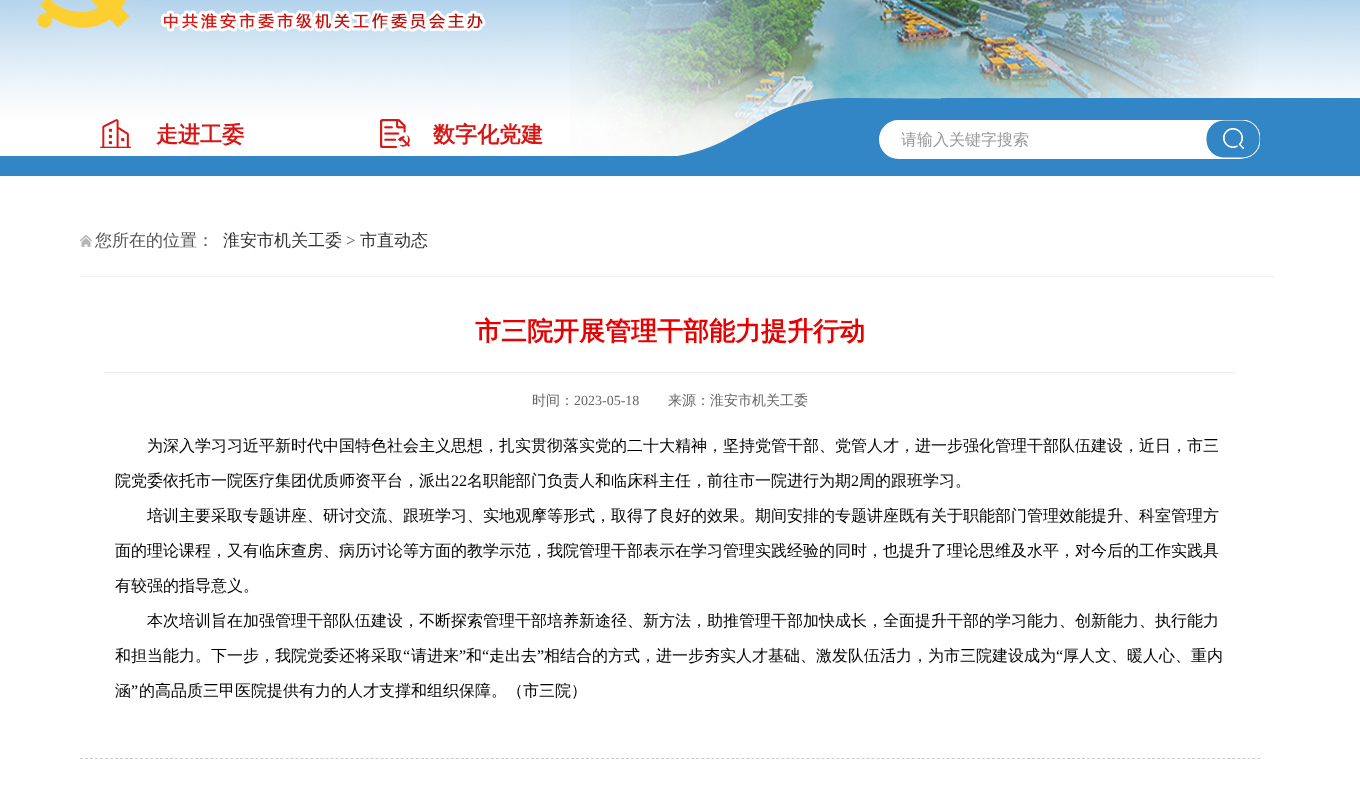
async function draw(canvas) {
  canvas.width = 1360
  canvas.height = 802
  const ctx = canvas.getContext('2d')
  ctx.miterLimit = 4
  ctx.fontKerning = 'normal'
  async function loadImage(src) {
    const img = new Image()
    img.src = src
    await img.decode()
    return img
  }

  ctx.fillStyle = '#fff'
  ctx.fillRect(0, 0, 1360, 802)
  ctx.drawImage(await loadImage('image0.png'), 0, 0, 1360, 176)
  ctx.drawImage(await loadImage('image1.png'), 100, 119, 31, 29)
  ctx.font = 'bold 22px WenQuanYi Zen Hei'
  ctx.fillStyle = '#d71715'
  ctx.fillText('走进工委', 156, 142)
  ctx.drawImage(await loadImage('image2.png'), 380, 119, 30, 29)
  ctx.fillText('数字化党建', 433, 142)
  ctx.fillStyle = '#fff'
  ctx.beginPath()
  ctx.roundRect(880, 121, 378, 37, 18.5)
  ctx.fill()
  ctx.strokeStyle = '#fff'
  ctx.lineWidth = 2
  ctx.stroke()
  ctx.font = '500 16px WenQuanYi Zen Hei'
  ctx.fillStyle = '#999'
  ctx.fillText('请输入关键字搜索', 901, 145)
  ctx.drawImage(await loadImage('image3.png'), 1206, 120, 54, 38)
  ctx.drawImage(await loadImage('image4.png'), 80, 235, 12, 12)
  ctx.fillStyle = '#f1f0f0'
  ctx.fillRect(80, 276, 1195, 1)
  ctx.font = '500 17px WenQuanYi Zen Hei'
  ctx.fillStyle = '#555'
  ctx.fillText('您所在的位置：', 95, 246)
  ctx.fillStyle = '#333'
  ctx.fillText('淮安市机关工委', 223, 246)
  ctx.font = '17px Liberation Serif'
  ctx.fillStyle = '#555'
  ctx.fillText('>', 346, 246)
  ctx.font = '500 17px WenQuanYi Zen Hei'
  ctx.fillStyle = '#333'
  ctx.fillText('市直动态', 360, 246)
  ctx.beginPath()
  ctx.moveTo(80, 758.5)
  ctx.lineTo(1260, 758.5)
  ctx.strokeStyle = '#ccc'
  ctx.lineWidth = 1
  ctx.setLineDash([3, 2.01])
  ctx.stroke()
  ctx.fillStyle = '#ededed'
  ctx.fillRect(104, 372, 1132, 1)
  ctx.font = 'bold 26px WenQuanYi Zen Hei'
  ctx.fillStyle = '#e60000'
  ctx.fillText('市三院开展管理干部能力提升行动', 475, 340)
  ctx.font = '500 14px WenQuanYi Zen Hei'
  ctx.fillStyle = '#666'
  ctx.fillText('时间：', 532, 405)
  ctx.font = '14px Liberation Serif'
  ctx.fillText('2023-05-18', 574, 405)
  ctx.font = '500 14px WenQuanYi Zen Hei'
  ctx.fillText('来源：淮安市机关工委', 668, 405)
  ctx.font = '500 16px WenQuanYi Zen Hei'
  ctx.fillStyle = '#000'
  ctx.fillText('为深入学习习近平新时代中国特色社会主义思想，扎实贯彻落实党的二十大精神，坚持党管干部、党管人才，进一步强化管理干部队伍建设，近日，市三', 147, 451)
  ctx.fillText('院党委依托市一院医疗集团优质师资平台，派出', 115, 486)
  ctx.font = '16px Liberation Serif'
  ctx.fillText('22', 451, 486)
  ctx.font = '500 16px WenQuanYi Zen Hei'
  ctx.fillText('名职能部门负责人和临床科主任，前往市一院进行为期', 467, 486)
  ctx.font = '16px Liberation Serif'
  ctx.fillText('2', 851, 486)
  ctx.font = '500 16px WenQuanYi Zen Hei'
  ctx.fillText('周的跟班学习。', 859, 486)
  ctx.fillText('培训主要采取专题讲座、研讨交流、跟班学习、实地观摩等形式，取得了良好的效果。期间安排的专题讲座既有关于职能部门管理效能提升、科室管理方', 147, 521)
  ctx.fillText('面的理论课程，又有临床查房、病历讨论等方面的教学示范，我院管理干部表示在学习管理实践经验的同时，也提升了理论思维及水平，对今后的工作实践具', 115, 556)
  ctx.fillText('有较强的指导意义。', 115, 591)
  ctx.fillText('本次培训旨在加强管理干部队伍建设，不断探索管理干部培养新途径、新方法，助推管理干部加快成长，全面提升干部的学习能力、创新能力、执行能力', 147, 626)
  ctx.fillText('和担当能力。下一步，我院党委还将采取', 115, 661)
  ctx.font = '16px Liberation Serif'
  ctx.fillText('“', 403, 661)
  ctx.font = '500 16px WenQuanYi Zen Hei'
  ctx.fillText('请进来', 411, 661)
  ctx.font = '16px Liberation Serif'
  ctx.fillText('”', 459, 661)
  ctx.font = '500 16px WenQuanYi Zen Hei'
  ctx.fillText('和', 466, 661)
  ctx.font = '16px Liberation Serif'
  ctx.fillText('“', 482, 661)
  ctx.font = '500 16px WenQuanYi Zen Hei'
  ctx.fillText('走出去', 489, 661)
  ctx.font = '16px Liberation Serif'
  ctx.fillText('”', 537, 661)
  ctx.font = '500 16px WenQuanYi Zen Hei'
  ctx.fillText('相结合的方式，进一步夯实人才基础、激发队伍活力，为市三院建设成为', 544, 661)
  ctx.font = '16px Liberation Serif'
  ctx.fillText('“', 1056, 661)
  ctx.font = '500 16px WenQuanYi Zen Hei'
  ctx.fillText('厚人文、暖人心、重内', 1063, 661)
  ctx.fillText('涵', 115, 696)
  ctx.font = '16px Liberation Serif'
  ctx.fillText('”', 131, 696)
  ctx.font = '500 16px WenQuanYi Zen Hei'
  ctx.fillText('的高品质三甲医院提供有力的人才支撑和组织保障。（市三院）', 139, 696)
}

draw(document.querySelector('canvas'))
